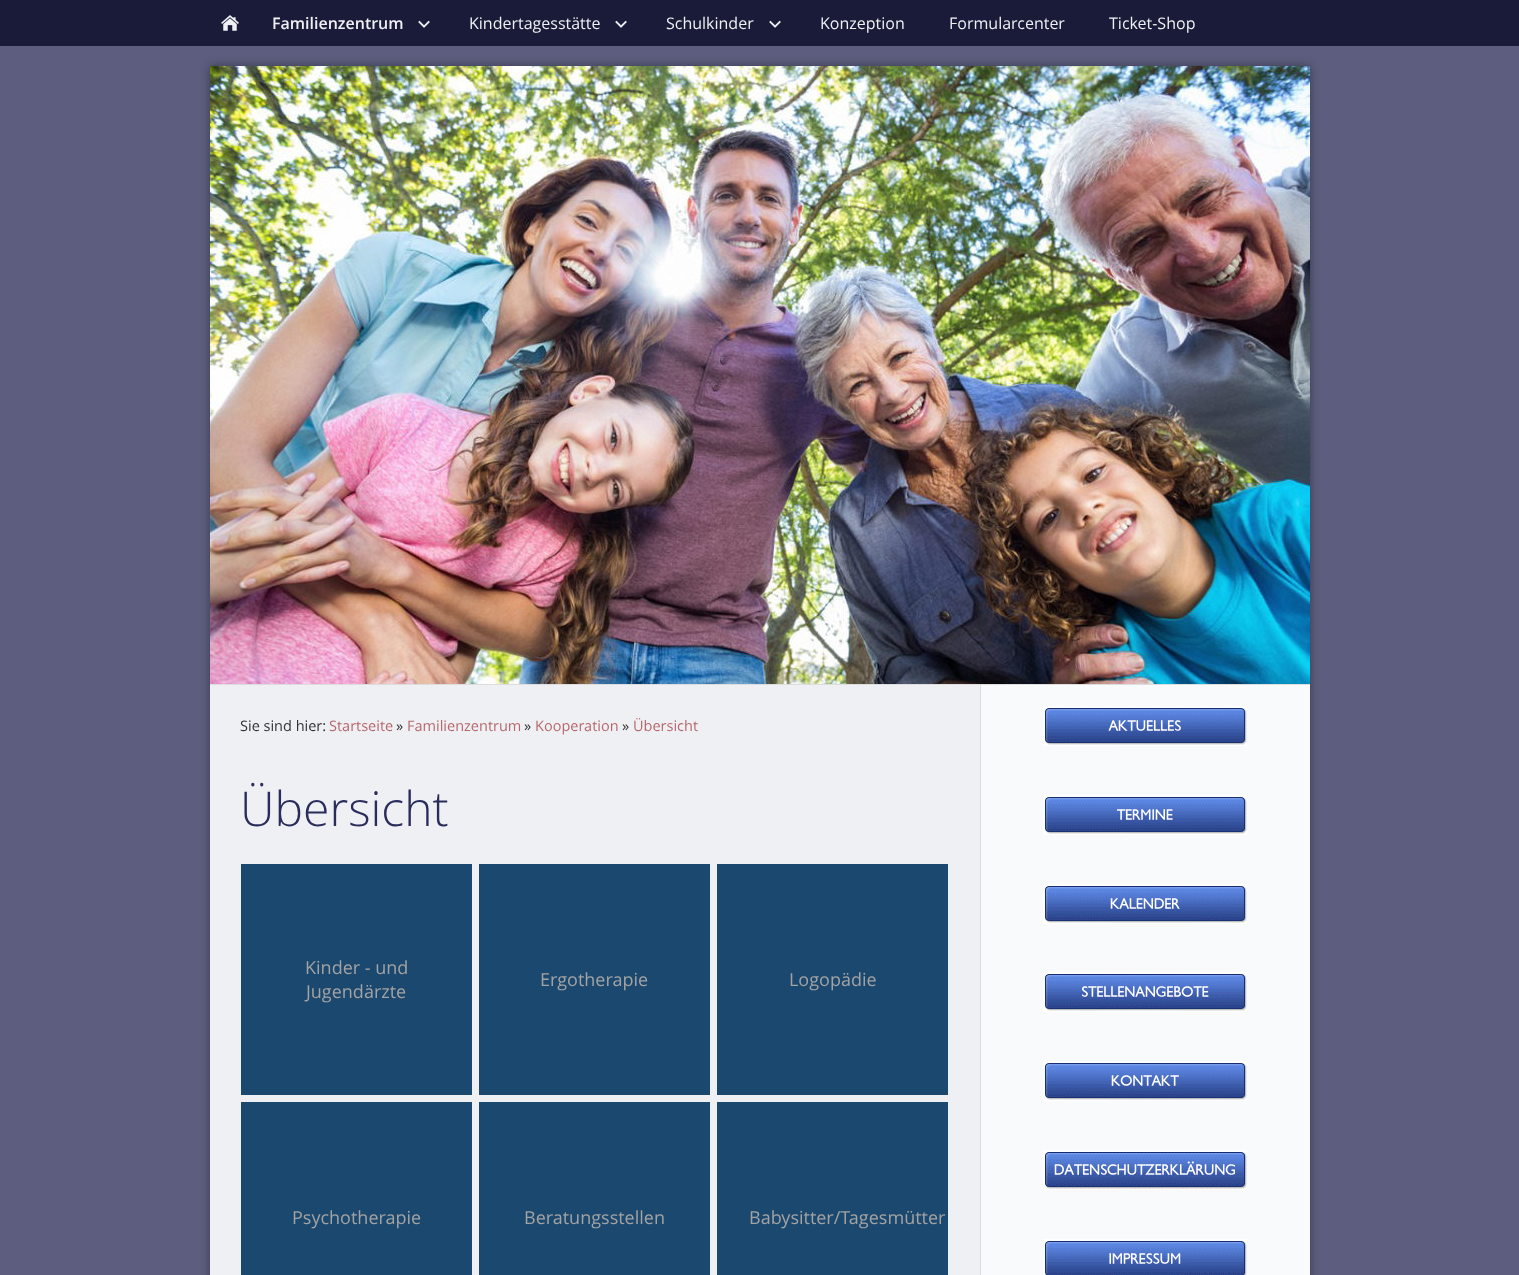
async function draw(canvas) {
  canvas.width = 1519
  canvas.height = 1275
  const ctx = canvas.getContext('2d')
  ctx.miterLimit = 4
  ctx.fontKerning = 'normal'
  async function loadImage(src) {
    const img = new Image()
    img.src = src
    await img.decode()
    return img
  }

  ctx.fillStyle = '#191b38'
  ctx.fillRect(0, 0, 1519, 1275)
  ctx.drawImage(await loadImage('image0.png'), 221, 15, 18, 16)
  ctx.drawImage(await loadImage('image1.png'), 418, 20, 12, 8)
  ctx.font = '600 16px Open Sans'
  ctx.fillStyle = '#eff0f4'
  ctx.fillText('Familienzentrum', 272, 29)
  ctx.drawImage(await loadImage('image1.png'), 615, 20, 12, 8)
  ctx.font = '16px Open Sans'
  ctx.fillText('Kindertagesstätte', 469, 29)
  ctx.drawImage(await loadImage('image1.png'), 769, 20, 12, 8)
  ctx.fillText('Schulkinder', 666, 29)
  ctx.fillText('Konzeption', 820, 29)
  ctx.fillText('Formularcenter', 949, 29)
  ctx.fillText('Ticket-Shop', 1109, 29)
  ctx.fillStyle = '#5d5e7f'
  ctx.fillRect(0, 46, 1519, 1229)
  ctx.fillStyle = '#00000066'
  ctx.filter = 'blur(5px)'
  ctx.beginPath()
  ctx.rect(210, 66, 1100, 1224)
  ctx.fill()
  ctx.filter = 'none'
  ctx.fillStyle = '#eff0f4'
  ctx.fillRect(210, 685, 770, 590)
  ctx.fillStyle = '#ddd'
  ctx.fillRect(210, 684, 1100, 1)
  ctx.drawImage(await loadImage('image2.png'), 210, 66, 1100, 618)
  ctx.font = '14.5px Open Sans'
  ctx.fillStyle = '#333'
  ctx.fillText('Sie sind hier:', 240, 731)
  ctx.fillStyle = '#b7686c'
  ctx.fillText('Startseite', 329, 731)
  ctx.fillStyle = '#333'
  ctx.fillText('»', 396, 731)
  ctx.fillStyle = '#b7686c'
  ctx.fillText('Familienzentrum', 407, 731)
  ctx.fillStyle = '#333'
  ctx.fillText('»', 524, 731)
  ctx.fillStyle = '#b7686c'
  ctx.fillText('Kooperation', 535, 731)
  ctx.fillStyle = '#333'
  ctx.fillText('»', 622, 731)
  ctx.fillStyle = '#b7686c'
  ctx.fillText('Übersicht', 633, 731)
  ctx.font = '300 48px Open Sans'
  ctx.fillStyle = '#2a2c5b'
  ctx.fillText('Übersicht', 240, 826)
  ctx.fillStyle = '#1b486e'
  ctx.fillRect(241, 864, 231, 231)
  ctx.font = '18px Open Sans'
  ctx.fillStyle = '#a3a3a3'
  ctx.fillText('Kinder - und', 305, 974)
  ctx.fillText('Jugendärzte', 306, 998)
  ctx.fillStyle = '#1b486e'
  ctx.fillRect(479, 864, 231, 231)
  ctx.fillStyle = '#a3a3a3'
  ctx.fillText('Ergotherapie', 540, 986)
  ctx.fillStyle = '#1b486e'
  ctx.fillRect(717, 864, 231, 231)
  ctx.fillStyle = '#a3a3a3'
  ctx.fillText('Logopädie', 789, 986)
  ctx.fillStyle = '#1b486e'
  ctx.fillRect(241, 1102, 231, 173)
  ctx.fillStyle = '#a3a3a3'
  ctx.fillText('Psychotherapie', 292, 1224)
  ctx.fillStyle = '#1b486e'
  ctx.fillRect(479, 1102, 231, 173)
  ctx.fillStyle = '#a3a3a3'
  ctx.fillText('Beratungsstellen', 524, 1224)
  ctx.fillStyle = '#1b486e'
  ctx.fillRect(717, 1102, 231, 173)
  ctx.fillStyle = '#a3a3a3'
  ctx.fillText('Babysitter/Tagesmütter', 749, 1224)
  ctx.fillStyle = '#f9fafc'
  ctx.fillRect(981, 685, 329, 590)
  ctx.fillStyle = '#ddd'
  ctx.fillRect(980, 685, 1, 590)
  ctx.drawImage(await loadImage('image3.png'), 1043, 706, 204, 40)
  ctx.drawImage(await loadImage('image4.png'), 1043, 795, 204, 40)
  ctx.drawImage(await loadImage('image5.png'), 1043, 884, 204, 40)
  ctx.drawImage(await loadImage('image6.png'), 1043, 972, 204, 40)
  ctx.drawImage(await loadImage('image7.png'), 1043, 1061, 204, 40)
  ctx.drawImage(await loadImage('image8.png'), 1043, 1150, 204, 40)
  ctx.drawImage(await loadImage('image9.png'), 1043, 1239, 204, 36)
}

draw(document.querySelector('canvas'))
